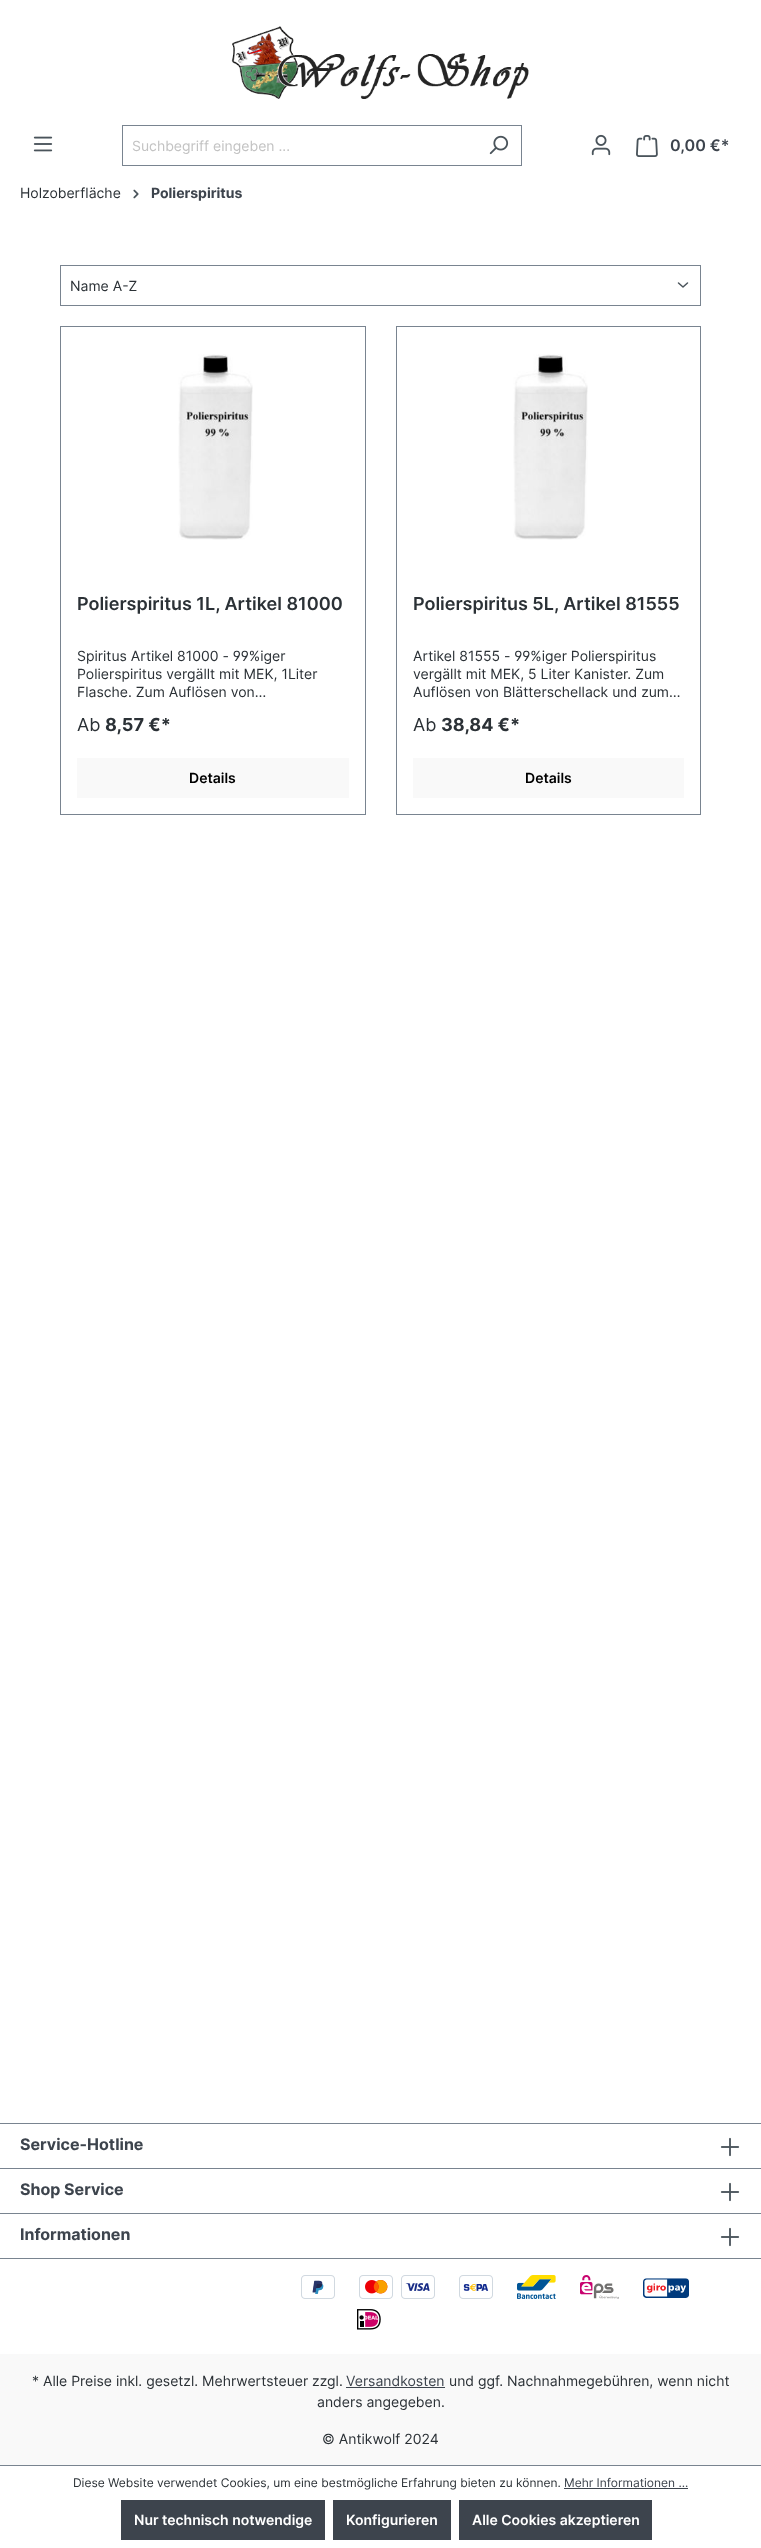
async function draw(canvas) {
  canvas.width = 761
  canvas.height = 2548
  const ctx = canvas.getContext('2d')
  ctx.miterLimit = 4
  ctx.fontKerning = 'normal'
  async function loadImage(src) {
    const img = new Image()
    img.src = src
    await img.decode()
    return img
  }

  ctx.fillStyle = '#fff'
  ctx.fillRect(0, 0, 761, 2548)
  ctx.drawImage(await loadImage('image0.png'), 231, 26, 298, 73)
  ctx.drawImage(await loadImage('image1.png'), 33, 136, 20, 16)
  ctx.fillStyle = '#798490'
  ctx.fillRect(122, 125, 400, 1)
  ctx.fillRect(122, 165, 354, 1)
  ctx.fillRect(122, 125, 1, 41)
  ctx.font = '14px Inter'
  ctx.fillStyle = '#c3c3c3'
  ctx.fillText('Suchbegriff eingeben ...', 132, 151)
  ctx.fillStyle = '#798490'
  ctx.fillRect(521, 125, 1, 41)
  ctx.fillRect(475, 165, 47, 1)
  ctx.drawImage(await loadImage('image2.png'), 489, 135, 20, 20)
  ctx.drawImage(await loadImage('image3.png'), 591, 134, 20, 22)
  ctx.drawImage(await loadImage('image4.png'), 636, 135, 22, 22)
  ctx.font = '600 16px Inter'
  ctx.fillStyle = '#3d444d'
  ctx.fillText('0,00 €*', 670, 151)
  ctx.font = '14px Inter'
  ctx.fillStyle = '#2b3136'
  ctx.fillText('Holzoberfläche', 20, 198)
  ctx.drawImage(await loadImage('image5.png'), 133, 189, 6, 10)
  ctx.font = 'bold 14px Inter'
  ctx.fillStyle = '#3d444d'
  ctx.fillText('Polierspiritus', 151, 198)
  ctx.beginPath()
  ctx.moveTo(678.5, 283)
  ctx.lineTo(683, 287)
  ctx.lineTo(687.5, 283)
  ctx.strokeStyle = '#4a545b'
  ctx.lineWidth = 1.5
  ctx.lineCap = 'round'
  ctx.lineJoin = 'round'
  ctx.stroke()
  ctx.strokeStyle = '#798490'
  ctx.lineWidth = 1
  ctx.lineJoin = 'miter'
  ctx.strokeRect(60.5, 265.5, 640, 40)
  ctx.font = '14px Inter'
  ctx.fillStyle = '#2b3136'
  ctx.fillText('Name A-Z', 70, 291)
  ctx.strokeRect(60.5, 326.5, 305, 488)
  ctx.drawImage(await loadImage('image6.png'), 178, 354, 75, 186)
  ctx.font = '600 18px Inter'
  ctx.fillText('Polierspiritus 1L, Artikel 81000', 77, 610)
  ctx.font = '14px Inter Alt'
  ctx.fillText('Spiritus Artikel 81000 - 99%iger', 77, 661)
  ctx.font = '14px Inter'
  ctx.fillText('Polierspiritus vergällt mit MEK, 1Liter', 77, 679)
  ctx.fillText('Flasche. Zum Auflösen von…', 77, 697)
  ctx.font = '18px Inter'
  ctx.fillText('Ab', 77, 731)
  ctx.font = 'bold 18px Inter'
  ctx.fillText('8,57 €*', 105, 731)
  ctx.fillStyle = '#f9f9f9'
  ctx.fillRect(77, 758, 272, 40)
  ctx.font = '600 14px Inter'
  ctx.fillStyle = '#000'
  ctx.fillText('Details', 189, 783)
  ctx.strokeRect(396.5, 326.5, 304, 488)
  ctx.drawImage(await loadImage('image6.png'), 513, 354, 75, 186)
  ctx.font = '600 18px Inter'
  ctx.fillStyle = '#2b3136'
  ctx.fillText('Polierspiritus 5L, Artikel 81555', 413, 610)
  ctx.font = '14px Inter Alt'
  ctx.fillText('Artikel 81555 - 99%iger Polierspiritus', 413, 661)
  ctx.font = '14px Inter'
  ctx.fillText('vergällt mit MEK, 5 Liter Kanister. Zum', 413, 679)
  ctx.fillText('Auflösen von Blätterschellack und zum…', 413, 697)
  ctx.font = '18px Inter'
  ctx.fillText('Ab', 413, 731)
  ctx.font = 'bold 18px Inter'
  ctx.fillText('38,84 €*', 441, 731)
  ctx.fillStyle = '#f9f9f9'
  ctx.fillRect(413, 758, 271, 40)
  ctx.font = '600 14px Inter'
  ctx.fillStyle = '#000'
  ctx.fillText('Details', 525, 783)
  ctx.fillStyle = '#798490'
  ctx.fillRect(0, 2123, 761, 1)
  ctx.fillRect(0, 2168, 761, 1)
  ctx.font = 'bold 16px Inter'
  ctx.fillStyle = '#3d444d'
  ctx.fillText('Service-Hotline', 20, 2150)
  ctx.drawImage(await loadImage('image7.png'), 720, 2137, 20, 20)
  ctx.fillStyle = '#798490'
  ctx.fillRect(0, 2213, 761, 1)
  ctx.fillStyle = '#3d444d'
  ctx.fillText('Shop Service', 20, 2195)
  ctx.drawImage(await loadImage('image7.png'), 720, 2182, 20, 20)
  ctx.fillStyle = '#798490'
  ctx.fillRect(0, 2258, 761, 1)
  ctx.fillStyle = '#3d444d'
  ctx.fillText('Informationen', 20, 2240)
  ctx.drawImage(await loadImage('image7.png'), 720, 2227, 20, 20)
  ctx.drawImage(await loadImage('image8.png'), 301, 2275, 34, 24)
  ctx.drawImage(await loadImage('image9.png'), 359, 2275, 76, 24)
  ctx.drawImage(await loadImage('image10.png'), 459, 2275, 34, 24)
  ctx.drawImage(await loadImage('image11.png'), 517, 2275, 39, 24)
  ctx.drawImage(await loadImage('image12.png'), 580, 2275, 39, 24)
  ctx.drawImage(await loadImage('image13.png'), 643, 2278, 46, 20)
  ctx.drawImage(await loadImage('image14.png'), 357, 2309, 24, 21)
  ctx.fillStyle = '#f9f9f9'
  ctx.fillRect(0, 2354, 761, 111)
  ctx.font = '14px Inter'
  ctx.fillStyle = '#2b3136'
  ctx.fillText('* Alle Preise inkl. gesetzl. Mehrwertsteuer zzgl.', 32, 2386)
  ctx.fillStyle = '#3d444d'
  ctx.fillText('Versandkosten', 346, 2386)
  ctx.fillRect(346, 2387, 99, 1)
  ctx.fillStyle = '#2b3136'
  ctx.fillText('und ggf. Nachnahmegebühren, wenn nicht', 449, 2386)
  ctx.fillText('anders angegeben.', 317, 2407)
  ctx.fillText('© Antikwolf 2024', 322, 2444)
  ctx.fillStyle = '#798490'
  ctx.fillRect(0, 2465, 761, 1)
  ctx.font = '12px Inter'
  ctx.fillStyle = '#2b3136'
  ctx.fillText('Diese Website verwendet Cookies, um eine bestmögliche Erfahrung bieten zu können.', 73, 2487)
  ctx.fillStyle = '#3d444d'
  ctx.fillText('Mehr Informationen ...', 564, 2487)
  ctx.fillRect(564, 2488, 124, 1)
  ctx.fillRect(121, 2500, 204, 40)
  ctx.font = '600 14px Inter'
  ctx.fillStyle = '#fff'
  ctx.fillText('Nur technisch notwendige', 134, 2525)
  ctx.fillStyle = '#3d444d'
  ctx.fillRect(333, 2500, 118, 40)
  ctx.fillStyle = '#fff'
  ctx.fillText('Konfigurieren', 346, 2525)
  ctx.fillStyle = '#3d444d'
  ctx.fillRect(459, 2500, 193, 40)
  ctx.fillStyle = '#fff'
  ctx.fillText('Alle Cookies akzeptieren', 472, 2525)
}

draw(document.querySelector('canvas'))
